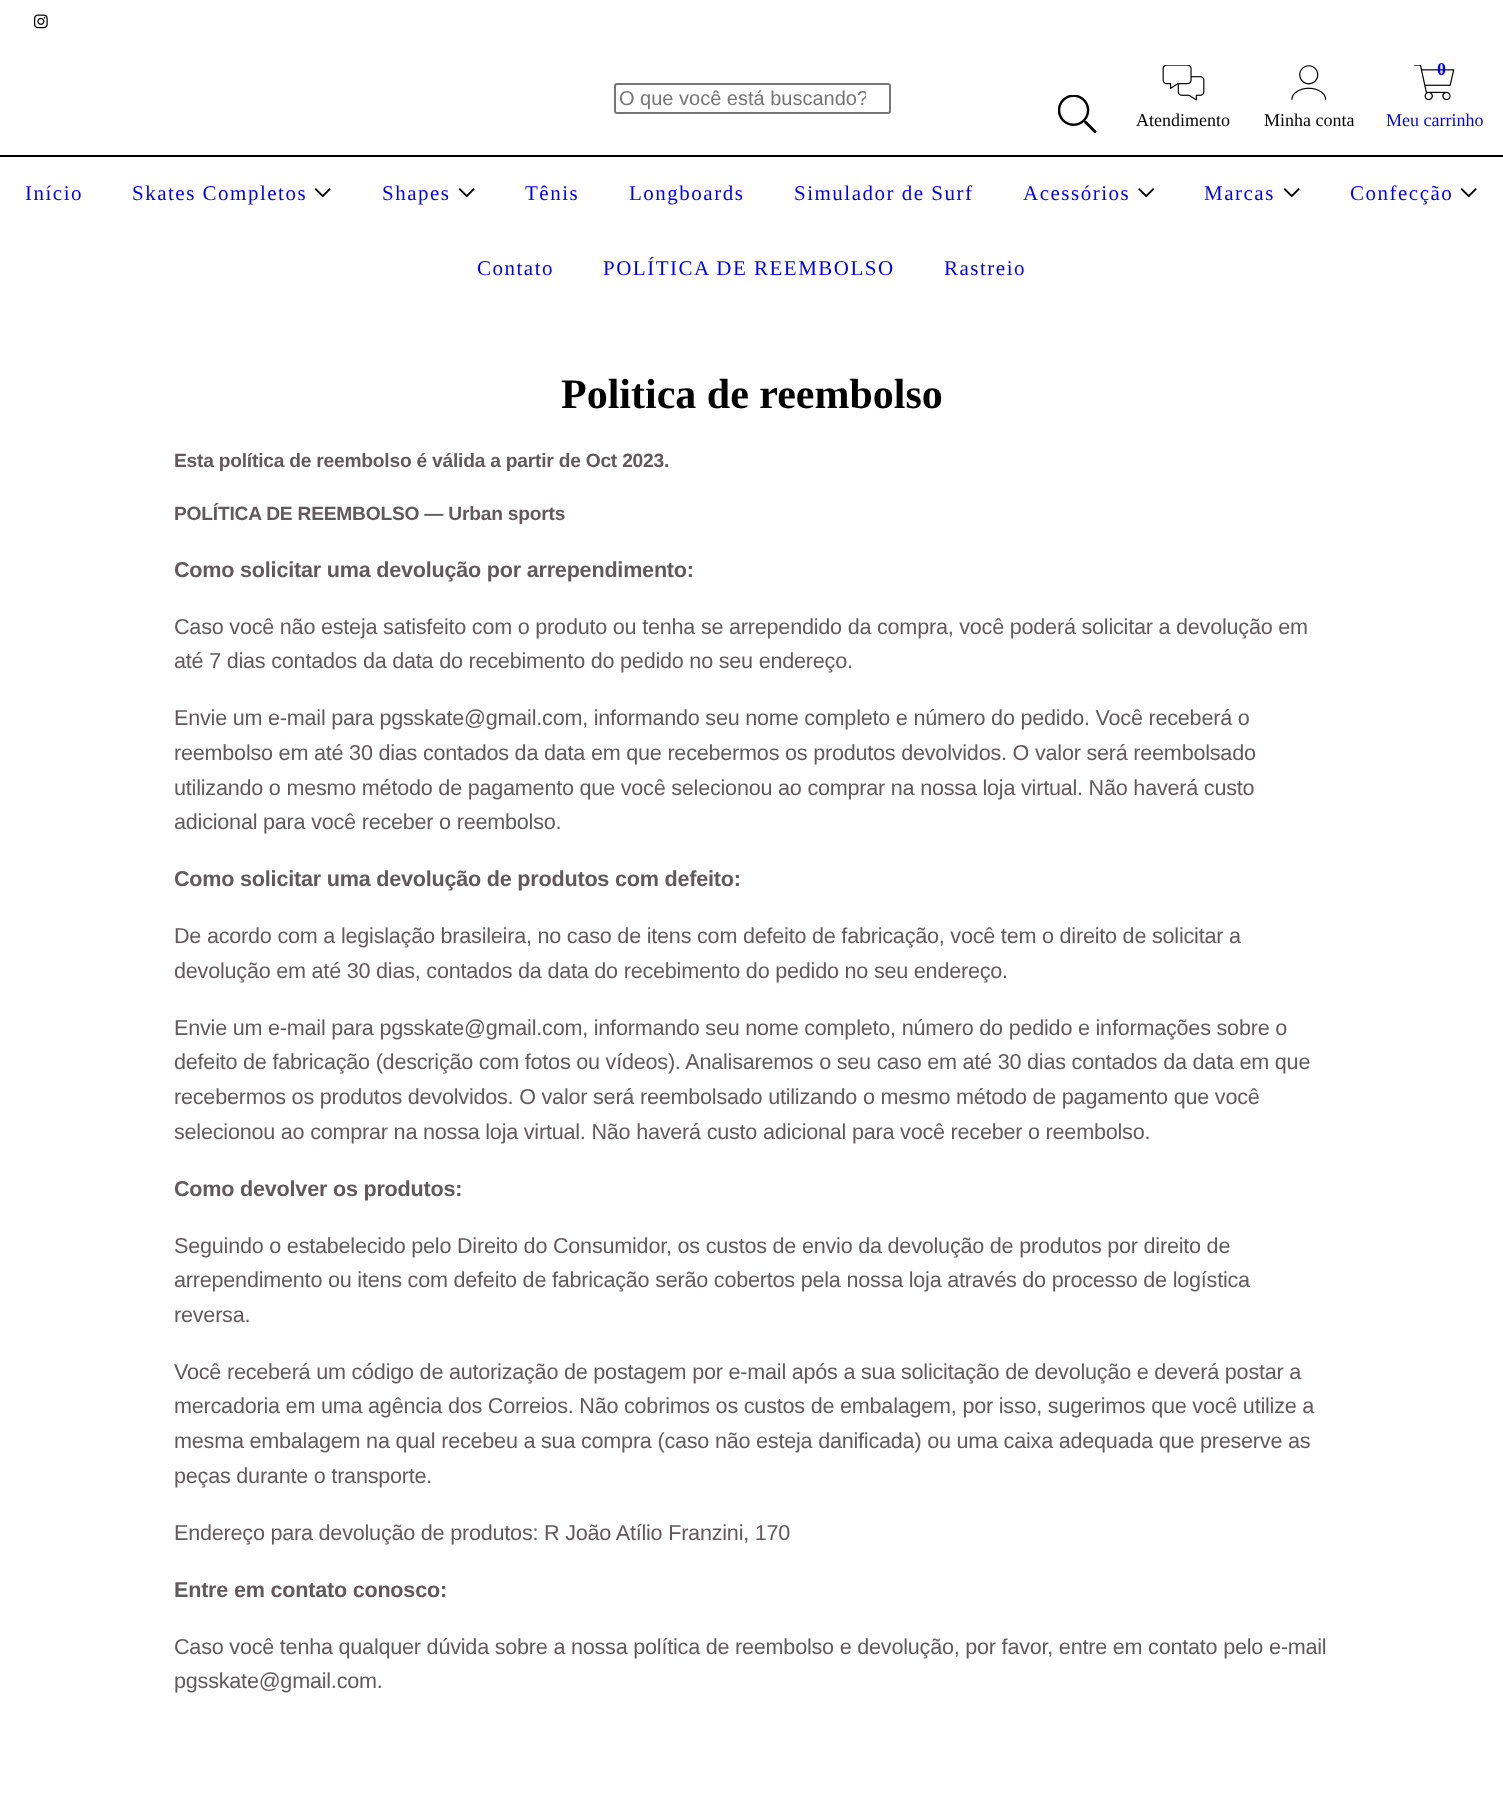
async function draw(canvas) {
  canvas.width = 1503
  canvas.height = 1799
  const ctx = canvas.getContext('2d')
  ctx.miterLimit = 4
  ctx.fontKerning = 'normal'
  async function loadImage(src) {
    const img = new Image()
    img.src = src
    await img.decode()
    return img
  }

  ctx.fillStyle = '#fff'
  ctx.fillRect(0, 0, 1503, 1799)
  ctx.drawImage(await loadImage('image0.png'), 34, 14, 14, 15)
  ctx.beginPath()
  ctx.roundRect(615, 84, 275, 29, 2)
  ctx.strokeStyle = '#767676'
  ctx.lineWidth = 2
  ctx.stroke()
  ctx.save()
  ctx.beginPath()
  ctx.rect(620, 87, 246, 23)
  ctx.clip()
  ctx.font = '20px Liberation Sans'
  ctx.fillStyle = '#757575'
  ctx.fillText('O que você está buscando?', 619, 105)
  ctx.restore()
  ctx.drawImage(await loadImage('image1.png'), 1058, 95, 39, 39)
  ctx.drawImage(await loadImage('image2.png'), 1162, 65, 43, 36)
  ctx.font = '18px Liberation Serif'
  ctx.fillStyle = '#000'
  ctx.fillText('Atendimento', 1136, 126)
  ctx.drawImage(await loadImage('image3.png'), 1291, 65, 36, 35)
  ctx.fillText('Minha conta', 1264, 126)
  ctx.drawImage(await loadImage('image4.png'), 1413, 65, 42, 36)
  ctx.font = 'bold 18px Liberation Serif'
  ctx.fillStyle = '#00e'
  ctx.fillText('0', 1437, 75)
  ctx.font = '18px Liberation Serif'
  ctx.fillText('Meu carrinho', 1386, 126)
  ctx.fillStyle = '#000'
  ctx.fillRect(0, 155, 1503, 2)
  ctx.letterSpacing = '1.5px'
  ctx.font = '21px Liberation Serif'
  ctx.fillStyle = '#00e'
  ctx.fillText('Início', 25, 200)
  ctx.fillText('Skates Completos', 132, 200)
  ctx.drawImage(await loadImage('image5.png'), 314, 188, 17, 10)
  ctx.fillText('Shapes', 382, 200)
  ctx.drawImage(await loadImage('image5.png'), 458, 188, 17, 10)
  ctx.fillText('Tênis', 525, 200)
  ctx.fillText('Longboards', 629, 200)
  ctx.fillText('Simulador de Surf', 794, 200)
  ctx.fillText('Acessórios', 1023, 200)
  ctx.drawImage(await loadImage('image6.png'), 1138, 188, 17, 10)
  ctx.fillText('Marcas', 1204, 200)
  ctx.drawImage(await loadImage('image5.png'), 1283, 188, 17, 10)
  ctx.fillText('Confecção', 1350, 200)
  ctx.drawImage(await loadImage('image5.png'), 1460, 188, 17, 10)
  ctx.fillText('Contato', 477, 275)
  ctx.fillText('POLÍTICA DE REEMBOLSO', 603, 275)
  ctx.fillText('Rastreio', 944, 275)
  ctx.letterSpacing = '0px'
  ctx.font = 'bold 42px Liberation Serif'
  ctx.fillStyle = '#000'
  ctx.fillText('Politica de reembolso', 561, 408)
  ctx.letterSpacing = '-0.22px'
  ctx.font = 'bold 19.2px Liberation Sans'
  ctx.fillStyle = '#62595d'
  ctx.fillText('Esta política de reembolso é válida a partir de Oct 2023.', 174, 467)
  ctx.fillText('POLÍTICA DE REEMBOLSO — Urban sports', 174, 520)
  ctx.font = 'bold 21.6px Liberation Sans'
  ctx.fillText('Como solicitar uma devolução por arrependimento:', 174, 577)
  ctx.font = '21.6px Liberation Sans'
  ctx.fillText('Caso você não esteja satisfeito com o produto ou tenha se arrependido da compra, você poderá solicitar a devolução em', 174, 634)
  ctx.fillText('até 7 dias contados da data do recebimento do pedido no seu endereço.', 174, 668)
  ctx.fillText('Envie um e-mail para pgsskate@gmail.com, informando seu nome completo e número do pedido. Você receberá o', 174, 725)
  ctx.fillText('reembolso em até 30 dias contados da data em que recebermos os produtos devolvidos. O valor será reembolsado', 174, 760)
  ctx.fillText('utilizando o mesmo método de pagamento que você selecionou ao comprar na nossa loja virtual. Não haverá custo', 174, 795)
  ctx.fillText('adicional para você receber o reembolso.', 174, 829)
  ctx.font = 'bold 21.6px Liberation Sans'
  ctx.fillText('Como solicitar uma devolução de produtos com defeito:', 174, 886)
  ctx.font = '21.6px Liberation Sans'
  ctx.fillText('De acordo com a legislação brasileira, no caso de itens com defeito de fabricação, você tem o direito de solicitar a', 174, 943)
  ctx.fillText('devolução em até 30 dias, contados da data do recebimento do pedido no seu endereço.', 174, 978)
  ctx.fillText('Envie um e-mail para pgsskate@gmail.com, informando seu nome completo, número do pedido e informações sobre o', 174, 1035)
  ctx.fillText('defeito de fabricação (descrição com fotos ou vídeos). Analisaremos o seu caso em até 30 dias contados da data em que', 174, 1069)
  ctx.fillText('recebermos os produtos devolvidos. O valor será reembolsado utilizando o mesmo método de pagamento que você', 174, 1104)
  ctx.fillText('selecionou ao comprar na nossa loja virtual. Não haverá custo adicional para você receber o reembolso.', 174, 1139)
  ctx.font = 'bold 21.6px Liberation Sans'
  ctx.fillText('Como devolver os produtos:', 174, 1196)
  ctx.font = '21.6px Liberation Sans'
  ctx.fillText('Seguindo o estabelecido pelo Direito do Consumidor, os custos de envio da devolução de produtos por direito de', 174, 1253)
  ctx.fillText('arrependimento ou itens com defeito de fabricação serão cobertos pela nossa loja através do processo de logística', 174, 1287)
  ctx.fillText('reversa.', 174, 1322)
  ctx.fillText('Você receberá um código de autorização de postagem por e-mail após a sua solicitação de devolução e deverá postar a', 174, 1379)
  ctx.fillText('mercadoria em uma agência dos Correios. Não cobrimos os custos de embalagem, por isso, sugerimos que você utilize a', 174, 1413)
  ctx.fillText('mesma embalagem na qual recebeu a sua compra (caso não esteja danificada) ou uma caixa adequada que preserve as', 174, 1448)
  ctx.fillText('peças durante o transporte.', 174, 1483)
  ctx.fillText('Endereço para devolução de produtos: R João Atílio Franzini, 170', 174, 1540)
  ctx.font = 'bold 21.6px Liberation Sans'
  ctx.fillText('Entre em contato conosco:', 174, 1597)
  ctx.font = '21.6px Liberation Sans'
  ctx.fillText('Caso você tenha qualquer dúvida sobre a nossa política de reembolso e devolução, por favor, entre em contato pelo e-mail', 174, 1654)
  ctx.fillText('pgsskate@gmail.com.', 174, 1688)
}

draw(document.querySelector('canvas'))
